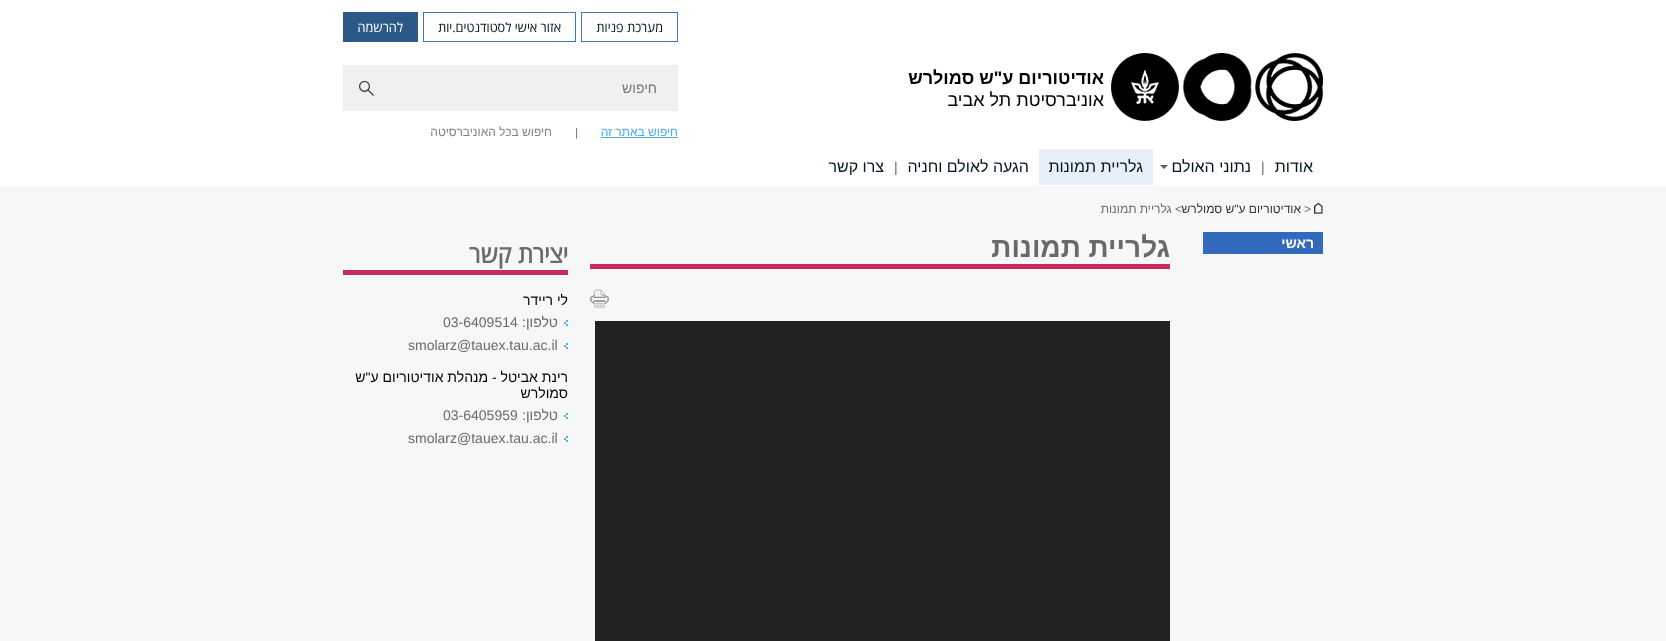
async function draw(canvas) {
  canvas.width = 1666
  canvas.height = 641
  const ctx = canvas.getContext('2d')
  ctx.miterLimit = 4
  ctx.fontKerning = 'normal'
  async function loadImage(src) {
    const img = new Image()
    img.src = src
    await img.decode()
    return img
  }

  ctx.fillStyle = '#f7f7f7'
  ctx.fillRect(0, 0, 1666, 641)
  ctx.fillStyle = '#fff'
  ctx.fillRect(0, 0, 1666, 186)
  ctx.strokeStyle = '#3b7bbd'
  ctx.strokeRect(581.5, 12.5, 96, 29)
  ctx.direction = 'rtl'
  ctx.font = '13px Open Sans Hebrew'
  ctx.fillStyle = '#001721'
  ctx.fillText('מערכת פניות', 663, 32)
  ctx.strokeRect(423.5, 12.5, 152, 29)
  ctx.fillText('אזור אישי לסטודנטים.יות', 561, 32)
  ctx.fillStyle = '#2b5988'
  ctx.fillRect(343, 12, 75, 30)
  ctx.fillStyle = '#fff'
  ctx.fillText('להרשמה', 403, 32)
  ctx.drawImage(await loadImage('image0.png'), 1111, 53, 212, 68)
  ctx.font = 'bold 18px Liberation Sans'
  ctx.fillStyle = '#000'
  ctx.fillText('אודיטוריום ע"ש סמולרש', 1104, 84)
  ctx.font = '18px Liberation Sans'
  ctx.fillText('אוניברסיטת תל אביב', 1104, 106)
  ctx.fillStyle = '#f0f0f0'
  ctx.fillRect(343, 65, 335, 46)
  ctx.font = '14px Liberation Sans'
  ctx.fillStyle = '#757575'
  ctx.fillText('חיפוש', 657, 93)
  ctx.drawImage(await loadImage('image1.png'), 359, 80, 15, 16)
  ctx.font = '12px Liberation Sans'
  ctx.fillStyle = '#45ade6'
  ctx.fillText('חיפוש באתר זה', 678, 136)
  ctx.fillRect(601, 137, 77, 1)
  ctx.direction = 'ltr'
  ctx.font = 'italic 11px Liberation Sans'
  ctx.fillStyle = '#696969'
  ctx.fillText('|', 575, 136)
  ctx.direction = 'rtl'
  ctx.font = '12px Liberation Sans'
  ctx.fillStyle = '#808080'
  ctx.fillText('חיפוש בכל האוניברסיטה', 552, 136)
  ctx.font = '16px Liberation Sans'
  ctx.fillStyle = '#001721'
  ctx.fillText('אודות', 1313, 172)
  ctx.direction = 'ltr'
  ctx.font = '14px Liberation Sans'
  ctx.fillStyle = '#696969'
  ctx.fillText('|', 1261, 172)
  ctx.direction = 'rtl'
  ctx.font = '16px Liberation Sans'
  ctx.fillStyle = '#001721'
  ctx.fillText('נתוני האולם', 1251, 172)
  ctx.fillStyle = '#606060'
  ctx.beginPath()
  ctx.moveTo(1160, 165)
  ctx.lineTo(1168, 165)
  ctx.lineTo(1164, 169)
  ctx.closePath()
  ctx.fill()
  ctx.fillStyle = '#e9eff9'
  ctx.fillRect(1039, 149, 114, 36)
  ctx.fillStyle = '#001721'
  ctx.fillText('גלריית תמונות', 1143, 172)
  ctx.fillText('הגעה לאולם וחניה', 1029, 172)
  ctx.direction = 'ltr'
  ctx.font = '14px Liberation Sans'
  ctx.fillStyle = '#696969'
  ctx.fillText('|', 894, 172)
  ctx.direction = 'rtl'
  ctx.font = '16px Liberation Sans'
  ctx.fillStyle = '#001721'
  ctx.fillText('צרו קשר', 884, 172)
  ctx.drawImage(await loadImage('image2.png'), 1314, 202, 9, 12)
  ctx.direction = 'ltr'
  ctx.font = '12px Liberation Sans'
  ctx.fillStyle = '#696969'
  ctx.fillText('>', 1304, 213)
  ctx.direction = 'rtl'
  ctx.fillStyle = '#333'
  ctx.fillText('אודיטוריום ע"ש סמולרש', 1301, 213)
  ctx.fillStyle = '#696969'
  ctx.fillText('> גלריית תמונות', 1182, 213)
  ctx.fillStyle = '#326abd'
  ctx.fillRect(1203, 232, 120, 22)
  ctx.font = 'bold 14px Liberation Sans'
  ctx.fillStyle = '#fff'
  ctx.fillText('ראשי', 1314, 248)
  ctx.font = 'bold 28px Liberation Sans'
  ctx.fillStyle = '#696969'
  ctx.fillText('גלריית תמונות', 1170, 257)
  ctx.fillStyle = '#c52c64'
  ctx.fillRect(590, 264, 580, 5)
  ctx.drawImage(await loadImage('image3.png'), 590, 289, 19, 19)
  ctx.fillStyle = '#222'
  ctx.fillRect(595, 321, 575, 320)
  ctx.font = 'bold 24px Open Sans Hebrew'
  ctx.fillStyle = '#696969'
  ctx.fillText('יצירת קשר', 568, 263)
  ctx.fillStyle = '#c52c64'
  ctx.fillRect(343, 270, 225, 5)
  ctx.font = '14px Liberation Sans'
  ctx.fillStyle = '#000'
  ctx.fillText('לי ריידר', 568, 305)
  ctx.drawImage(await loadImage('image4.png'), 564, 320, 4, 6)
  ctx.fillStyle = '#696969'
  ctx.fillText('טלפון:', 558, 327)
  ctx.direction = 'ltr'
  ctx.fillText('03-6409514', 443, 327)
  ctx.drawImage(await loadImage('image4.png'), 564, 343, 4, 6)
  ctx.fillText('smolarz@tauex.tau.ac.il', 408, 350)
  ctx.direction = 'rtl'
  ctx.fillStyle = '#000'
  ctx.fillText('רינת אביטל - מנהלת אודיטוריום ע"ש', 568, 382)
  ctx.fillText('סמולרש', 568, 398)
  ctx.drawImage(await loadImage('image4.png'), 564, 413, 4, 6)
  ctx.fillStyle = '#696969'
  ctx.fillText('טלפון:', 558, 420)
  ctx.direction = 'ltr'
  ctx.fillText('03-6405959', 443, 420)
  ctx.drawImage(await loadImage('image4.png'), 564, 436, 4, 6)
  ctx.fillText('smolarz@tauex.tau.ac.il', 408, 443)
}

draw(document.querySelector('canvas'))
